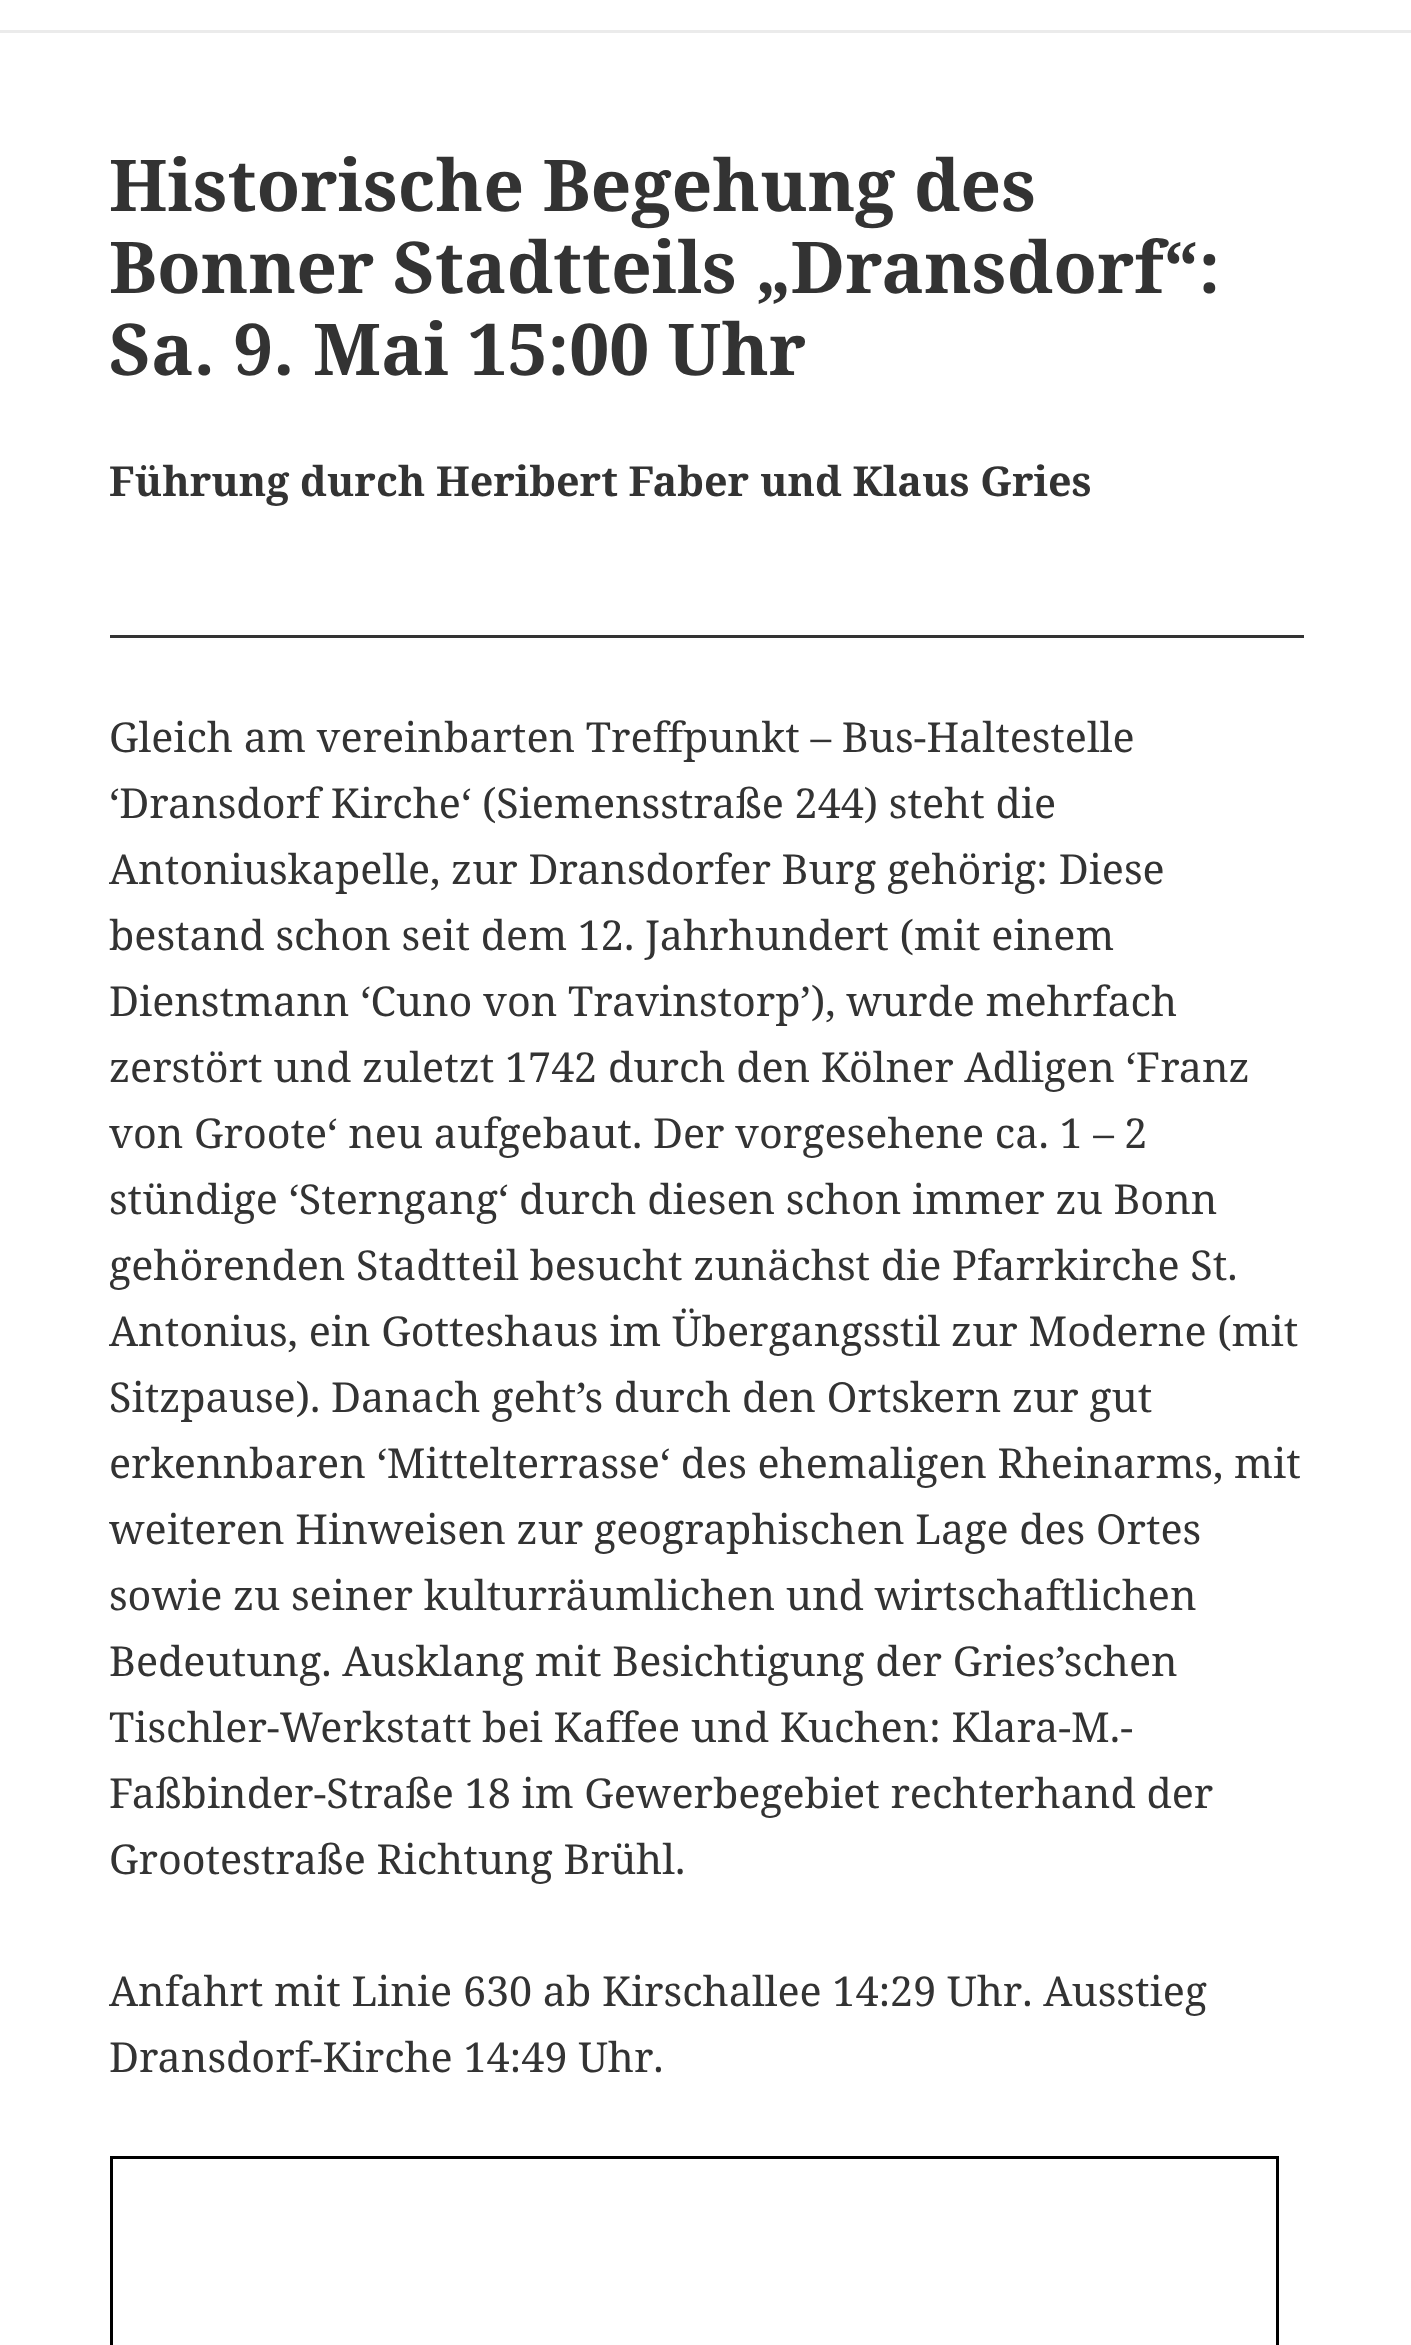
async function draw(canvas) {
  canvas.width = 1411
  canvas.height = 2345
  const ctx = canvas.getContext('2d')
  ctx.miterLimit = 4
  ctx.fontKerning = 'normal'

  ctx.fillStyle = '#fff'
  ctx.fillRect(0, 0, 1411, 2345)
  ctx.fillStyle = '#ebebeb'
  ctx.fillRect(0, 30, 1411, 3)
  ctx.font = 'bold 71.5px Noto Serif'
  ctx.fillStyle = '#333'
  ctx.fillText('Historische Begehung des', 109, 211)
  ctx.fillText('Bonner Stadtteils „Dransdorf“:', 109, 293)
  ctx.fillText('Sa. 9. Mai 15:00 Uhr', 109, 375)
  ctx.font = 'bold 41.25px Noto Serif'
  ctx.fillText('Führung durch Heribert Faber und Klaus Gries', 109, 496)
  ctx.fillRect(110, 635, 1194, 3)
  ctx.font = '41.25px Noto Serif'
  ctx.fillText('Gleich am vereinbarten Treffpunkt – Bus-Haltestelle', 109, 752)
  ctx.fillText('‘Dransdorf Kirche‘ (Siemensstraße 244) steht die', 109, 818)
  ctx.fillText('Antoniuskapelle, zur Dransdorfer Burg gehörig: Diese', 109, 884)
  ctx.fillText('bestand schon seit dem 12. Jahrhundert (mit einem', 109, 950)
  ctx.fillText('Dienstmann ‘Cuno von Travinstorp’), wurde mehrfach', 109, 1016)
  ctx.fillText('zerstört und zuletzt 1742 durch den Kölner Adligen ‘Franz', 109, 1082)
  ctx.fillText('von Groote‘ neu aufgebaut. Der vorgesehene ca. 1 – 2', 109, 1148)
  ctx.fillText('stündige ‘Sterngang‘ durch diesen schon immer zu Bonn', 109, 1214)
  ctx.fillText('gehörenden Stadtteil besucht zunächst die Pfarrkirche St.', 109, 1280)
  ctx.fillText('Antonius, ein Gotteshaus im Übergangsstil zur Moderne (mit', 109, 1346)
  ctx.fillText('Sitzpause). Danach geht’s durch den Ortskern zur gut', 109, 1412)
  ctx.fillText('erkennbaren ‘Mittelterrasse‘ des ehemaligen Rheinarms, mit', 109, 1478)
  ctx.fillText('weiteren Hinweisen zur geographischen Lage des Ortes', 109, 1544)
  ctx.fillText('sowie zu seiner kulturräumlichen und wirtschaftlichen', 109, 1610)
  ctx.fillText('Bedeutung. Ausklang mit Besichtigung der Gries’schen', 109, 1676)
  ctx.fillText('Tischler-Werkstatt bei Kaffee und Kuchen: Klara-M.-', 109, 1742)
  ctx.fillText('Faßbinder-Straße 18 im Gewerbegebiet rechterhand der', 109, 1808)
  ctx.fillText('Grootestraße Richtung Brühl.', 109, 1874)
  ctx.fillText('Anfahrt mit Linie 630 ab Kirschallee 14:29 Uhr. Ausstieg', 109, 2006)
  ctx.fillText('Dransdorf-Kirche 14:49 Uhr.', 109, 2072)
  ctx.strokeStyle = '#000'
  ctx.lineWidth = 3
  ctx.strokeRect(111.5, 2157.5, 1166, 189)
}

draw(document.querySelector('canvas'))
